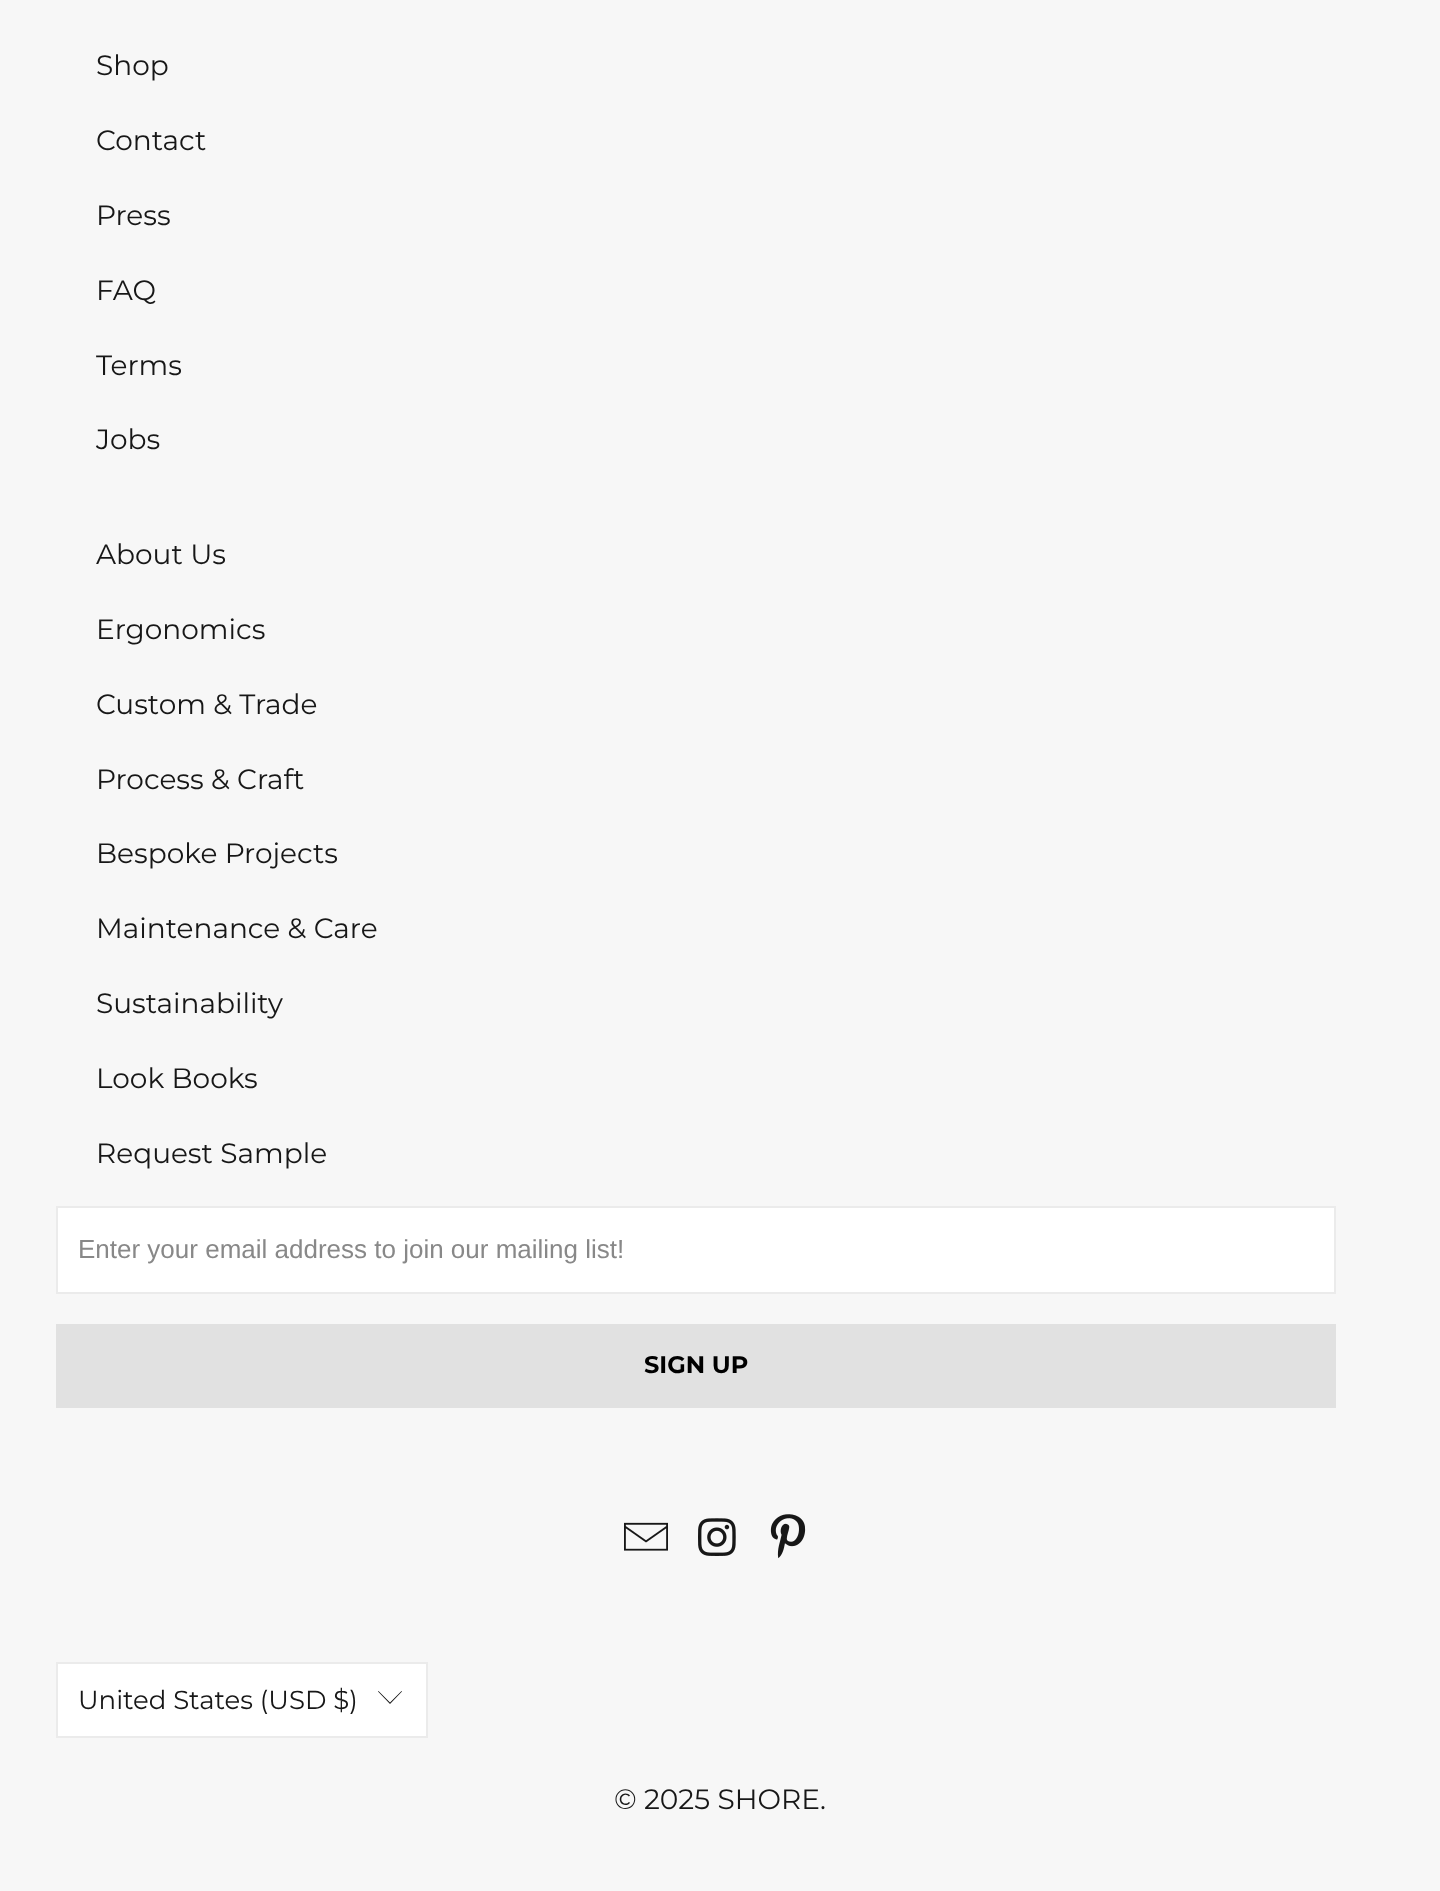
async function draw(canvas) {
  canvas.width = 1440
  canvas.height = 1891
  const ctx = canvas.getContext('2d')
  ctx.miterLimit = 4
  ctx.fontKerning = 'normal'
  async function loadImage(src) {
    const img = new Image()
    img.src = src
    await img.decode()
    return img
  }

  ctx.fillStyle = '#f7f7f7'
  ctx.fillRect(0, 0, 1440, 1891)
  ctx.font = '28px Montserrat'
  ctx.fillStyle = '#171717'
  ctx.fillText('Shop', 96, 75)
  ctx.fillText('Contact', 96, 150)
  ctx.fillText('Press', 96, 225)
  ctx.fillText('FAQ', 96, 300)
  ctx.fillText('Terms', 96, 375)
  ctx.fillText('Jobs', 96, 449)
  ctx.fillText('About Us', 96, 564)
  ctx.fillText('Ergonomics', 96, 639)
  ctx.fillText('Custom & Trade', 96, 714)
  ctx.fillText('Process & Craft', 96, 789)
  ctx.fillText('Bespoke Projects', 96, 863)
  ctx.fillText('Maintenance & Care', 96, 938)
  ctx.fillText('Sustainability', 96, 1013)
  ctx.fillText('Look Books', 96, 1088)
  ctx.fillText('Request Sample', 96, 1163)
  ctx.fillStyle = '#fff'
  ctx.beginPath()
  ctx.rect(57, 1207, 1278, 86)
  ctx.fill()
  ctx.strokeStyle = '#ebebeb'
  ctx.lineWidth = 2
  ctx.stroke()
  ctx.font = '26px Liberation Sans'
  ctx.fillStyle = '#888'
  ctx.fillText('Enter your email address to join our mailing list!', 78, 1258)
  ctx.fillStyle = '#e1e1e1'
  ctx.fillRect(56, 1324, 1280, 84)
  ctx.font = 'bold 24px Montserrat'
  ctx.fillStyle = '#000'
  ctx.fillText('SIGN UP', 644, 1373)
  ctx.drawImage(await loadImage('image0.png'), 624, 1522, 44, 29)
  ctx.drawImage(await loadImage('image1.png'), 698, 1518, 38, 38)
  ctx.drawImage(await loadImage('image2.png'), 770, 1514, 36, 45)
  ctx.fillStyle = '#fff'
  ctx.beginPath()
  ctx.rect(57, 1663, 370, 74)
  ctx.fill()
  ctx.stroke()
  ctx.font = '26px Montserrat'
  ctx.fillStyle = '#171717'
  ctx.fillText('United States (USD $)', 78, 1709)
  ctx.beginPath()
  ctx.moveTo(390, 1704)
  ctx.lineTo(378, 1691.5)
  ctx.lineTo(378.5, 1691)
  ctx.lineTo(390, 1702.5)
  ctx.lineTo(401.5, 1691)
  ctx.lineTo(402, 1691.5)
  ctx.closePath()
  ctx.fill()
  ctx.font = '28px Montserrat'
  ctx.fillText('© 2025 SHORE', 614, 1809)
  ctx.fillText('.', 820, 1809)
}

draw(document.querySelector('canvas'))
